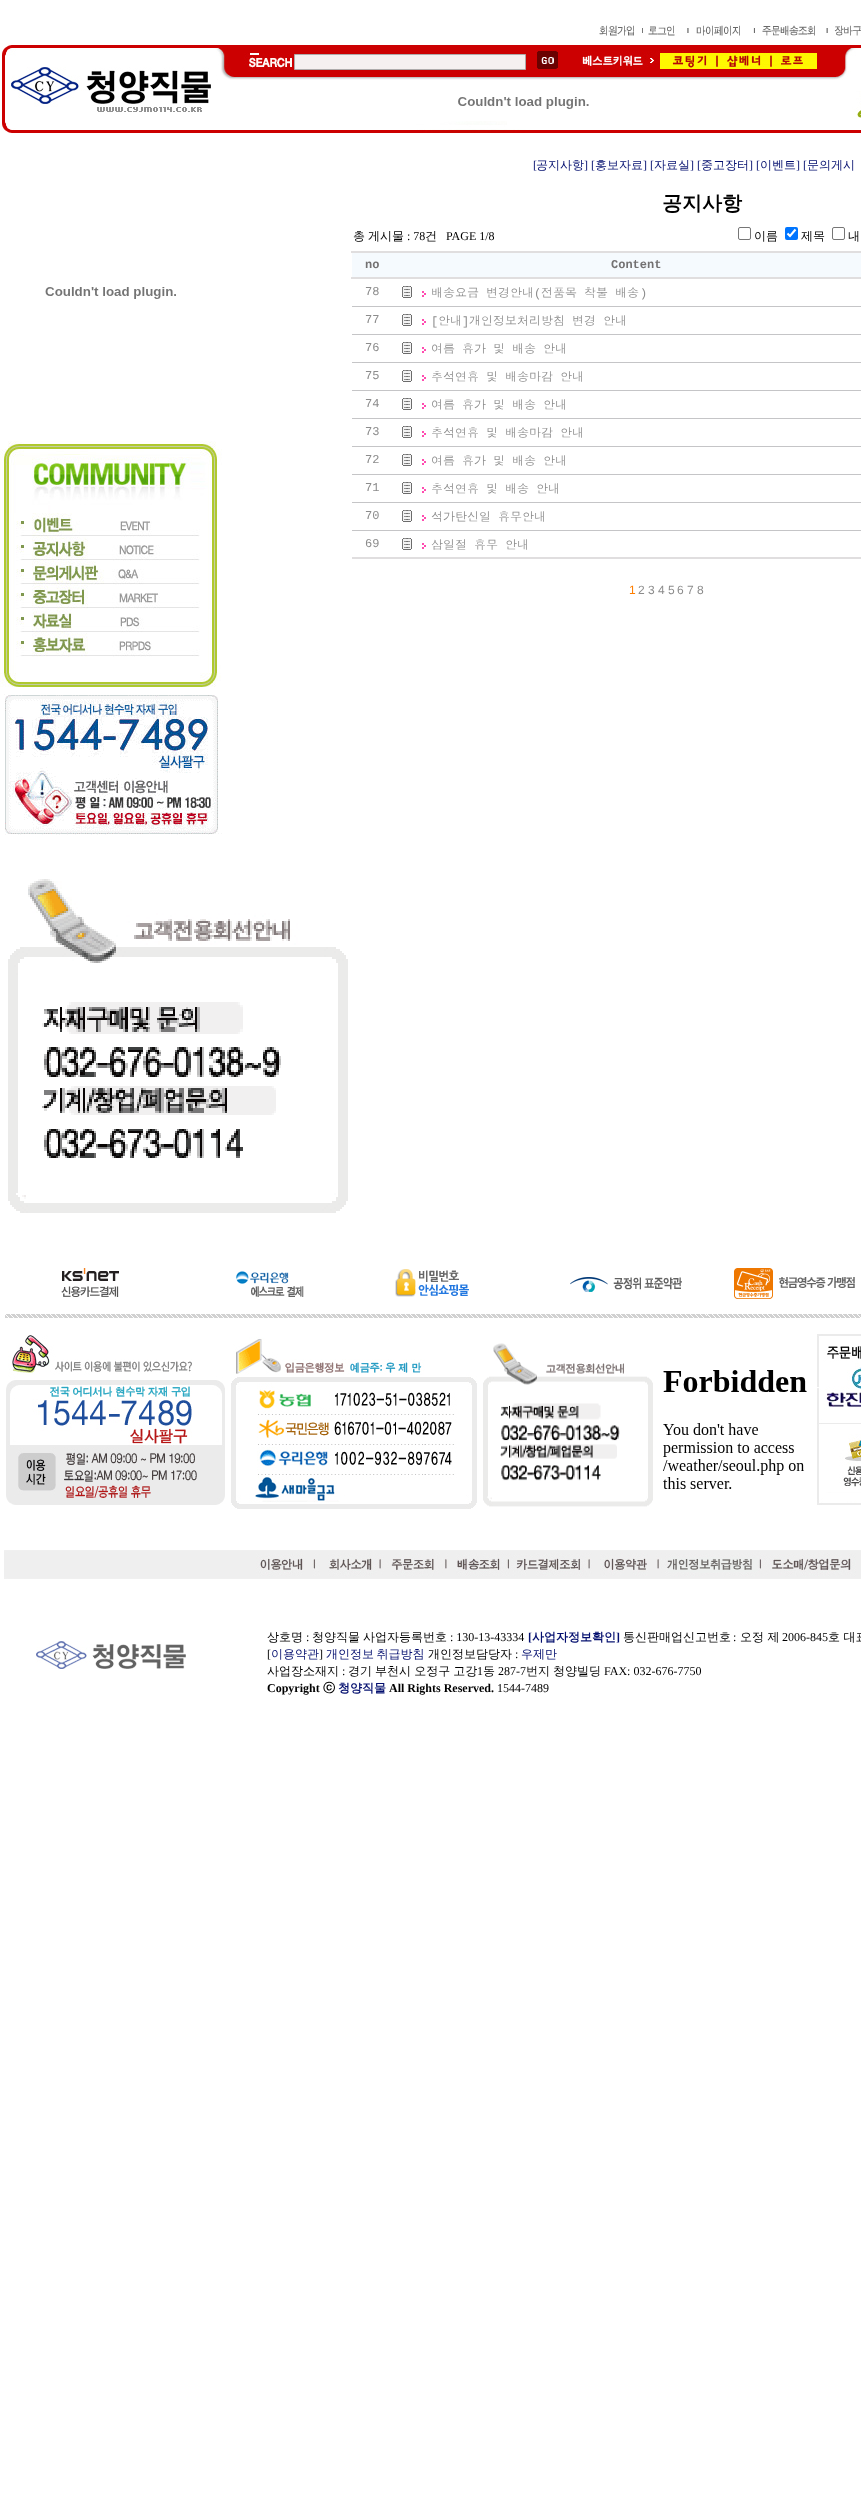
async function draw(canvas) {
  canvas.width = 861
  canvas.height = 2497
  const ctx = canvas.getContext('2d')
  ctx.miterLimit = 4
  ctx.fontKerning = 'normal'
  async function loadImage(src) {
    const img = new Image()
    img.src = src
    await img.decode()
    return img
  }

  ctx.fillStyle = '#fff'
  ctx.fillRect(0, 0, 861, 2497)
  ctx.drawImage(await loadImage('image0.png'), 0, 43, 861, 90)
  ctx.drawImage(await loadImage('image1.png'), 599, 25, 35, 11)
  ctx.drawImage(await loadImage('image2.png'), 642, 25, 47, 11)
  ctx.drawImage(await loadImage('image3.png'), 696, 25, 44, 11)
  ctx.drawImage(await loadImage('image4.png'), 753, 25, 62, 11)
  ctx.drawImage(await loadImage('image5.png'), 826, 25, 35, 11)
  ctx.drawImage(await loadImage('image6.png'), 9, 45, 213, 6)
  ctx.drawImage(await loadImage('image7.png'), 220, 53, 72, 19)
  ctx.fillStyle = '#f5f0f0'
  ctx.beginPath()
  ctx.rect(294.5, 54.5, 231, 15)
  ctx.fill()
  ctx.strokeStyle = '#aeabab'
  ctx.stroke()
  ctx.drawImage(await loadImage('image8.png'), 535, 51, 23, 18)
  ctx.drawImage(await loadImage('image9.png'), 582, 51, 235, 18)
  ctx.drawImage(await loadImage('image10.png'), 11, 67, 200, 45)
  ctx.drawImage(await loadImage('image11.png'), 848, 71, 13, 47)
  ctx.drawImage(await loadImage('image12.png'), 227, 74, 6, 3)
  ctx.drawImage(await loadImage('image13.png'), 458, 97, 131, 12)
  ctx.drawImage(await loadImage('image14.png'), 4, 121, 503, 9)
  ctx.drawImage(await loadImage('image15.png'), 45, 287, 131, 12)
  ctx.drawImage(await loadImage('image16.png'), 0, 441, 222, 246)
  ctx.drawImage(await loadImage('image17.png'), 4, 694, 218, 141)
  ctx.drawImage(await loadImage('image18.png'), 8, 879, 340, 334)
  ctx.font = '12px Liberation Serif'
  ctx.fillStyle = '#040f6f'
  ctx.fillText('[', 533, 169)
  ctx.font = '500 12px WenQuanYi Zen Hei'
  ctx.fillText('공지사항', 536, 169)
  ctx.font = '12px Liberation Serif'
  ctx.fillText('] [', 584, 169)
  ctx.font = '500 12px WenQuanYi Zen Hei'
  ctx.fillText('홍보자료', 595, 169)
  ctx.font = '12px Liberation Serif'
  ctx.fillText('] [', 643, 169)
  ctx.font = '500 12px WenQuanYi Zen Hei'
  ctx.fillText('자료실', 654, 169)
  ctx.font = '12px Liberation Serif'
  ctx.fillText('] [', 690, 169)
  ctx.font = '500 12px WenQuanYi Zen Hei'
  ctx.fillText('중고장터', 701, 169)
  ctx.font = '12px Liberation Serif'
  ctx.fillText('] [', 749, 169)
  ctx.font = '500 12px WenQuanYi Zen Hei'
  ctx.fillText('이벤트', 760, 169)
  ctx.font = '12px Liberation Serif'
  ctx.fillText('] [', 796, 169)
  ctx.font = '500 12px WenQuanYi Zen Hei'
  ctx.fillText('문의게시', 807, 169)
  ctx.font = 'bold 20px WenQuanYi Zen Hei'
  ctx.fillStyle = '#000'
  ctx.fillText('공지사항', 662, 210)
  ctx.font = '500 12px WenQuanYi Zen Hei'
  ctx.fillText('총', 353, 240)
  ctx.fillText('게시물', 368, 240)
  ctx.font = '12px Liberation Serif'
  ctx.fillText(': 78', 407, 240)
  ctx.font = '500 12px WenQuanYi Zen Hei'
  ctx.fillText('건', 425, 240)
  ctx.font = '12px Liberation Serif'
  ctx.fillText('PAGE 1/8', 446, 240)
  ctx.beginPath()
  ctx.roundRect(738.5, 227.5, 12, 12, 1.5)
  ctx.strokeStyle = '#767676'
  ctx.stroke()
  ctx.font = '500 12px WenQuanYi Zen Hei'
  ctx.fillText('이름', 754, 240)
  ctx.fillStyle = '#0075ff'
  ctx.beginPath()
  ctx.roundRect(785, 227, 13, 13, 2)
  ctx.fill()
  ctx.beginPath()
  ctx.moveTo(787.5, 233.5)
  ctx.lineTo(790, 236)
  ctx.lineTo(795.5, 229.5)
  ctx.strokeStyle = '#fff'
  ctx.lineWidth = 2.1
  ctx.stroke()
  ctx.fillStyle = '#000'
  ctx.fillText('제목', 801, 240)
  ctx.beginPath()
  ctx.roundRect(832.5, 227.5, 12, 12, 1.5)
  ctx.strokeStyle = '#767676'
  ctx.lineWidth = 1
  ctx.stroke()
  ctx.fillText('내', 848, 240)
  ctx.fillStyle = '#e0dedf'
  ctx.fillRect(352, 557, 509, 2)
  ctx.fillRect(351, 251, 510, 2)
  ctx.fillRect(351, 277, 510, 2)
  ctx.fillStyle = '#f5fafe'
  ctx.fillRect(352, 253, 509, 24)
  ctx.font = 'bold 12px Liberation Mono'
  ctx.fillStyle = '#737172'
  ctx.fillText('no', 365, 268)
  ctx.fillText('Content', 611, 268)
  ctx.font = '12px Liberation Mono'
  ctx.fillStyle = '#8c8c8c'
  ctx.fillText('78', 365, 295)
  ctx.drawImage(await loadImage('image19.png'), 402, 286, 10, 12)
  ctx.drawImage(await loadImage('image20.png'), 422, 291, 4, 6)
  ctx.wordSpacing = '3px'
  ctx.font = '12px Dotum'
  ctx.fillText('배송요금 변경안내', 431, 297)
  ctx.wordSpacing = '0px'
  ctx.font = '12px Liberation Mono'
  ctx.fillText('(', 534, 297)
  ctx.wordSpacing = '3px'
  ctx.font = '12px Dotum'
  ctx.fillText('전품목 착불 배송', 541, 297)
  ctx.wordSpacing = '0px'
  ctx.font = '12px Liberation Mono'
  ctx.fillText(')', 640, 297)
  ctx.fillStyle = '#c5c5c7'
  ctx.fillRect(352, 306, 509, 1)
  ctx.fillStyle = '#8c8c8c'
  ctx.fillText('77', 365, 323)
  ctx.drawImage(await loadImage('image19.png'), 402, 314, 10, 12)
  ctx.drawImage(await loadImage('image20.png'), 422, 319, 4, 6)
  ctx.fillText('[', 431, 325)
  ctx.font = '12px Dotum'
  ctx.fillText('안내', 438, 325)
  ctx.font = '12px Liberation Mono'
  ctx.fillText(']', 462, 325)
  ctx.wordSpacing = '3px'
  ctx.font = '12px Dotum'
  ctx.fillText('개인정보처리방침 변경 안내', 469, 325)
  ctx.fillStyle = '#c5c5c7'
  ctx.fillRect(352, 334, 509, 1)
  ctx.wordSpacing = '0px'
  ctx.font = '12px Liberation Mono'
  ctx.fillStyle = '#8c8c8c'
  ctx.fillText('76', 365, 351)
  ctx.drawImage(await loadImage('image19.png'), 402, 342, 10, 12)
  ctx.drawImage(await loadImage('image20.png'), 422, 347, 4, 6)
  ctx.wordSpacing = '3px'
  ctx.font = '12px Dotum'
  ctx.fillText('여름 휴가 및 배송 안내', 431, 353)
  ctx.fillStyle = '#c5c5c7'
  ctx.fillRect(352, 362, 509, 1)
  ctx.wordSpacing = '0px'
  ctx.font = '12px Liberation Mono'
  ctx.fillStyle = '#8c8c8c'
  ctx.fillText('75', 365, 379)
  ctx.drawImage(await loadImage('image19.png'), 402, 370, 10, 12)
  ctx.drawImage(await loadImage('image20.png'), 422, 375, 4, 6)
  ctx.wordSpacing = '3px'
  ctx.font = '12px Dotum'
  ctx.fillText('추석연휴 및 배송마감 안내', 431, 381)
  ctx.fillStyle = '#c5c5c7'
  ctx.fillRect(352, 390, 509, 1)
  ctx.wordSpacing = '0px'
  ctx.font = '12px Liberation Mono'
  ctx.fillStyle = '#8c8c8c'
  ctx.fillText('74', 365, 407)
  ctx.drawImage(await loadImage('image19.png'), 402, 398, 10, 12)
  ctx.drawImage(await loadImage('image20.png'), 422, 403, 4, 6)
  ctx.wordSpacing = '3px'
  ctx.font = '12px Dotum'
  ctx.fillText('여름 휴가 및 배송 안내', 431, 409)
  ctx.fillStyle = '#c5c5c7'
  ctx.fillRect(352, 418, 509, 1)
  ctx.wordSpacing = '0px'
  ctx.font = '12px Liberation Mono'
  ctx.fillStyle = '#8c8c8c'
  ctx.fillText('73', 365, 435)
  ctx.drawImage(await loadImage('image19.png'), 402, 426, 10, 12)
  ctx.drawImage(await loadImage('image20.png'), 422, 431, 4, 6)
  ctx.wordSpacing = '3px'
  ctx.font = '12px Dotum'
  ctx.fillText('추석연휴 및 배송마감 안내', 431, 437)
  ctx.fillStyle = '#c5c5c7'
  ctx.fillRect(352, 446, 509, 1)
  ctx.wordSpacing = '0px'
  ctx.font = '12px Liberation Mono'
  ctx.fillStyle = '#8c8c8c'
  ctx.fillText('72', 365, 463)
  ctx.drawImage(await loadImage('image19.png'), 402, 454, 10, 12)
  ctx.drawImage(await loadImage('image20.png'), 422, 459, 4, 6)
  ctx.wordSpacing = '3px'
  ctx.font = '12px Dotum'
  ctx.fillText('여름 휴가 및 배송 안내', 431, 465)
  ctx.fillStyle = '#c5c5c7'
  ctx.fillRect(352, 474, 509, 1)
  ctx.wordSpacing = '0px'
  ctx.font = '12px Liberation Mono'
  ctx.fillStyle = '#8c8c8c'
  ctx.fillText('71', 365, 491)
  ctx.drawImage(await loadImage('image19.png'), 402, 482, 10, 12)
  ctx.drawImage(await loadImage('image20.png'), 422, 487, 4, 6)
  ctx.wordSpacing = '3px'
  ctx.font = '12px Dotum'
  ctx.fillText('추석연휴 및 배송 안내', 431, 493)
  ctx.fillStyle = '#c5c5c7'
  ctx.fillRect(352, 502, 509, 1)
  ctx.wordSpacing = '0px'
  ctx.font = '12px Liberation Mono'
  ctx.fillStyle = '#8c8c8c'
  ctx.fillText('70', 365, 519)
  ctx.drawImage(await loadImage('image19.png'), 402, 510, 10, 12)
  ctx.drawImage(await loadImage('image20.png'), 422, 515, 4, 6)
  ctx.wordSpacing = '3px'
  ctx.font = '12px Dotum'
  ctx.fillText('석가탄신일 휴무안내', 431, 521)
  ctx.fillStyle = '#c5c5c7'
  ctx.fillRect(352, 530, 509, 1)
  ctx.wordSpacing = '0px'
  ctx.font = '12px Liberation Mono'
  ctx.fillStyle = '#8c8c8c'
  ctx.fillText('69', 365, 547)
  ctx.drawImage(await loadImage('image19.png'), 402, 538, 10, 12)
  ctx.drawImage(await loadImage('image20.png'), 422, 543, 4, 6)
  ctx.wordSpacing = '3px'
  ctx.font = '12px Dotum'
  ctx.fillText('삼일절 휴무 안내', 431, 549)
  ctx.wordSpacing = '0px'
  ctx.font = '12px Liberation Sans'
  ctx.fillStyle = '#ff7e00'
  ctx.fillText('1', 629, 594)
  ctx.fillStyle = '#8c8c8c'
  ctx.fillText('2', 638, 594)
  ctx.fillText('3', 648, 594)
  ctx.fillText('4', 658, 594)
  ctx.fillText('5', 668, 594)
  ctx.fillText('6', 677, 594)
  ctx.fillText('7', 687, 594)
  ctx.fillText('8', 697, 594)
  ctx.drawImage(await loadImage('image21.png'), 61, 1268, 58, 29)
  ctx.drawImage(await loadImage('image22.png'), 235, 1270, 69, 27)
  ctx.drawImage(await loadImage('image23.png'), 395, 1269, 74, 28)
  ctx.drawImage(await loadImage('image24.png'), 570, 1277, 112, 15)
  ctx.drawImage(await loadImage('image25.png'), 734, 1268, 121, 31)
  ctx.drawImage(await loadImage('image26.png'), 5, 1314, 856, 4)
  ctx.drawImage(await loadImage('image27.png'), 6, 1335, 219, 170)
  ctx.drawImage(await loadImage('image28.png'), 231, 1337, 246, 172)
  ctx.drawImage(await loadImage('image29.png'), 483, 1343, 170, 164)
  ctx.drawImage(await loadImage('image30.png'), 663, 1370, 144, 119)
  ctx.drawImage(await loadImage('image31.png'), 817, 1334, 44, 171)
  ctx.drawImage(await loadImage('image32.png'), 4, 1550, 857, 29)
  ctx.drawImage(await loadImage('image33.png'), 36, 1641, 150, 28)
  ctx.font = '500 12px WenQuanYi Zen Hei'
  ctx.fillStyle = '#000'
  ctx.fillText('상호명', 267, 1641)
  ctx.font = '12px Liberation Serif'
  ctx.fillText(':', 306, 1641)
  ctx.font = '500 12px WenQuanYi Zen Hei'
  ctx.fillText('청양직물', 312, 1641)
  ctx.fillText('사업자등록번호', 363, 1641)
  ctx.font = '12px Liberation Serif'
  ctx.fillText(': 130-13-43334', 450, 1641)
  ctx.font = 'bold 12px Liberation Serif'
  ctx.fillStyle = '#040f6f'
  ctx.fillText('[', 528, 1641)
  ctx.font = 'bold 12px WenQuanYi Zen Hei'
  ctx.fillText('사업자정보확인', 532, 1641)
  ctx.font = 'bold 12px Liberation Serif'
  ctx.fillText(']', 616, 1641)
  ctx.font = '500 12px WenQuanYi Zen Hei'
  ctx.fillStyle = '#000'
  ctx.fillText('통신판매업신고번호', 623, 1641)
  ctx.font = '12px Liberation Serif'
  ctx.fillText(':', 733, 1641)
  ctx.font = '500 12px WenQuanYi Zen Hei'
  ctx.fillText('오정 제', 740, 1641)
  ctx.font = '12px Liberation Serif'
  ctx.fillText('2006-845', 782, 1641)
  ctx.font = '500 12px WenQuanYi Zen Hei'
  ctx.fillText('호 대표', 828, 1641)
  ctx.font = '12px Liberation Serif'
  ctx.fillText('[', 267, 1658)
  ctx.font = '500 12px WenQuanYi Zen Hei'
  ctx.fillStyle = '#040f6f'
  ctx.fillText('이용약관', 271, 1658)
  ctx.font = '12px Liberation Serif'
  ctx.fillStyle = '#000'
  ctx.fillText(']', 319, 1658)
  ctx.wordSpacing = '-1px'
  ctx.font = '500 12px WenQuanYi Zen Hei'
  ctx.fillStyle = '#040f6f'
  ctx.fillText('개인정보 취급방침', 326, 1658)
  ctx.wordSpacing = '0px'
  ctx.fillStyle = '#000'
  ctx.fillText('개인정보담당자', 428, 1658)
  ctx.font = '12px Liberation Serif'
  ctx.fillText(':', 515, 1658)
  ctx.font = '500 12px WenQuanYi Zen Hei'
  ctx.fillStyle = '#040f6f'
  ctx.fillText('우제만', 521, 1658)
  ctx.fillStyle = '#000'
  ctx.fillText('사업장소재지', 267, 1675)
  ctx.font = '12px Liberation Serif'
  ctx.fillText(':', 342, 1675)
  ctx.wordSpacing = '-0.5px'
  ctx.font = '500 12px WenQuanYi Zen Hei'
  ctx.fillText('경기 부천시 오정구 고강', 348, 1675)
  ctx.wordSpacing = '0px'
  ctx.font = '12px Liberation Serif'
  ctx.fillText('1', 477, 1675)
  ctx.font = '500 12px WenQuanYi Zen Hei'
  ctx.fillText('동', 483, 1675)
  ctx.font = '12px Liberation Serif'
  ctx.fillText('287-7', 498, 1675)
  ctx.wordSpacing = '-0.5px'
  ctx.font = '500 12px WenQuanYi Zen Hei'
  ctx.fillText('번지 청양빌딩', 526, 1675)
  ctx.wordSpacing = '0px'
  ctx.font = '12px Liberation Serif'
  ctx.fillText('FAX: 032-676-7750', 604, 1675)
  ctx.font = 'bold 12px Liberation Serif'
  ctx.fillText('Copyright', 267, 1692)
  ctx.font = 'bold 12px WenQuanYi Zen Hei'
  ctx.fillText('ⓒ', 323, 1692)
  ctx.fillStyle = '#040f6f'
  ctx.fillText('청양직물', 338, 1692)
  ctx.font = 'bold 12px Liberation Serif'
  ctx.fillStyle = '#000'
  ctx.fillText('All Rights Reserved.', 389, 1692)
  ctx.font = '12px Liberation Serif'
  ctx.fillText('1544-7489', 497, 1692)
}

draw(document.querySelector('canvas'))
